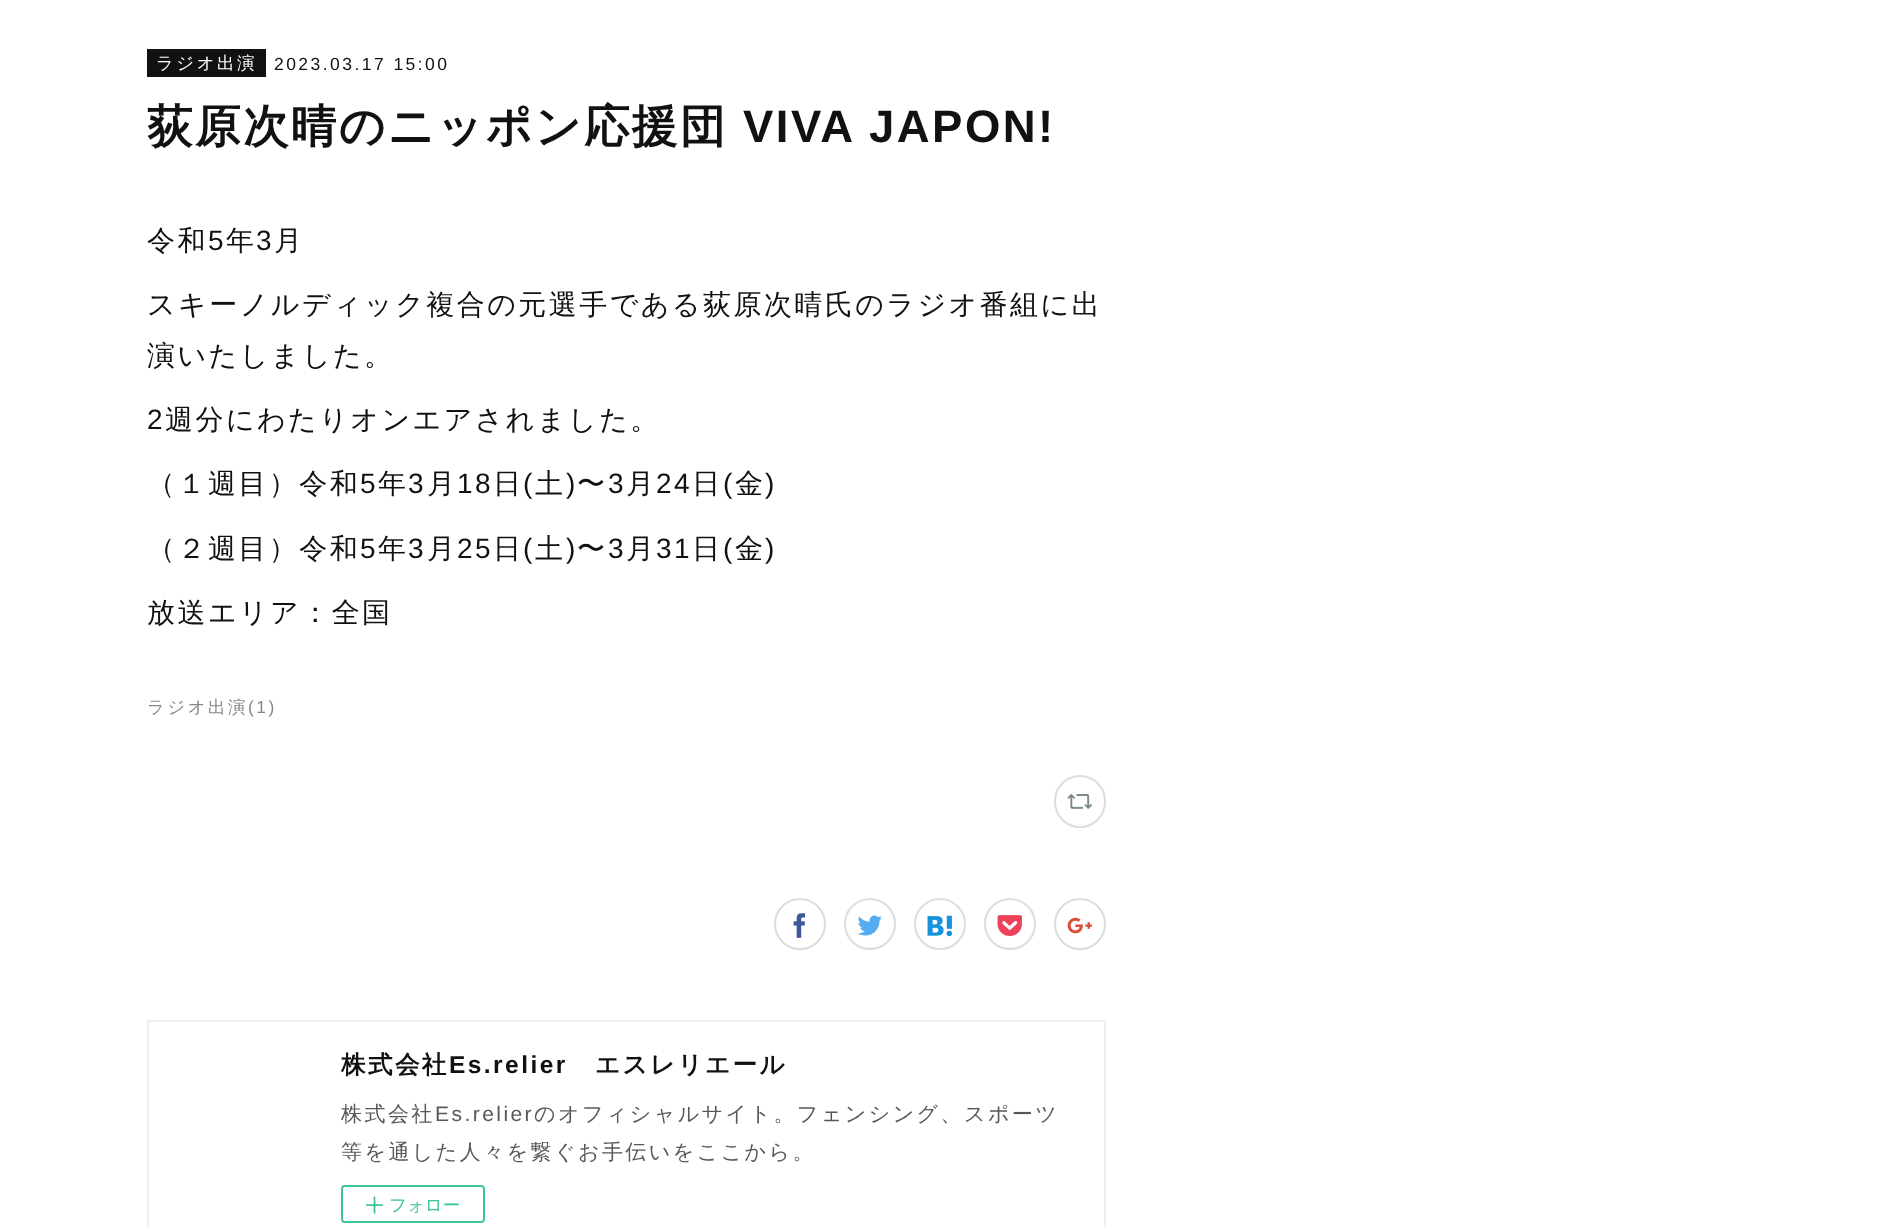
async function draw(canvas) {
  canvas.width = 1882
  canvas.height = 1227
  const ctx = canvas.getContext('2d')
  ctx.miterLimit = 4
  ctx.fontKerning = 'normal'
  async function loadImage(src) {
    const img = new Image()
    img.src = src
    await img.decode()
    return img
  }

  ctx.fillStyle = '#fff'
  ctx.fillRect(0, 0, 1882, 1227)
  ctx.fillStyle = '#111'
  ctx.fillRect(147, 49, 119, 28)
  ctx.letterSpacing = '2.45px'
  ctx.font = '500 17.5px WenQuanYi Zen Hei'
  ctx.fillStyle = '#fff'
  ctx.fillText('ラジオ出演', 156, 69)
  ctx.font = '17.5px Liberation Sans'
  ctx.fillStyle = '#111'
  ctx.fillText('2023.03.17 15:00', 274, 70)
  ctx.font = 'bold 45.5px WenQuanYi Zen Hei'
  ctx.fillText('荻原次晴のニッポン応援団', 147, 142)
  ctx.font = 'bold 45.5px Liberation Sans'
  ctx.fillText('VIVA JAPON!', 743, 142)
  ctx.font = '500 28px WenQuanYi Zen Hei'
  ctx.fillText('令和', 147, 250)
  ctx.font = '28px Liberation Sans'
  ctx.fillText('5', 208, 250)
  ctx.font = '500 28px WenQuanYi Zen Hei'
  ctx.fillText('年', 226, 250)
  ctx.font = '28px Liberation Sans'
  ctx.fillText('3', 256, 250)
  ctx.font = '500 28px WenQuanYi Zen Hei'
  ctx.fillText('月', 274, 250)
  ctx.fillText('スキーノルディック複合の元選手である荻原次晴氏のラジオ番組に出', 147, 314)
  ctx.fillText('演いたしました。', 147, 365)
  ctx.font = '28px Liberation Sans'
  ctx.fillText('2', 147, 429)
  ctx.font = '500 28px WenQuanYi Zen Hei'
  ctx.fillText('週分にわたりオンエアされました。', 165, 429)
  ctx.fillText('（１週目）令和', 147, 493)
  ctx.font = '28px Liberation Sans'
  ctx.fillText('5', 360, 493)
  ctx.font = '500 28px WenQuanYi Zen Hei'
  ctx.fillText('年', 378, 493)
  ctx.font = '28px Liberation Sans'
  ctx.fillText('3', 408, 493)
  ctx.font = '500 28px WenQuanYi Zen Hei'
  ctx.fillText('月', 427, 493)
  ctx.font = '28px Liberation Sans'
  ctx.fillText('18', 457, 493)
  ctx.font = '500 28px WenQuanYi Zen Hei'
  ctx.fillText('日', 493, 493)
  ctx.font = '28px Liberation Sans'
  ctx.fillText('(', 523, 493)
  ctx.font = '500 28px WenQuanYi Zen Hei'
  ctx.fillText('土', 535, 493)
  ctx.font = '28px Liberation Sans'
  ctx.fillText(')', 566, 493)
  ctx.font = '500 28px WenQuanYi Zen Hei'
  ctx.fillText('〜', 577, 493)
  ctx.font = '28px Liberation Sans'
  ctx.fillText('3', 608, 493)
  ctx.font = '500 28px WenQuanYi Zen Hei'
  ctx.fillText('月', 626, 493)
  ctx.font = '28px Liberation Sans'
  ctx.fillText('24', 656, 493)
  ctx.font = '500 28px WenQuanYi Zen Hei'
  ctx.fillText('日', 692, 493)
  ctx.font = '28px Liberation Sans'
  ctx.fillText('(', 723, 493)
  ctx.font = '500 28px WenQuanYi Zen Hei'
  ctx.fillText('金', 735, 493)
  ctx.font = '28px Liberation Sans'
  ctx.fillText(')', 765, 493)
  ctx.font = '500 28px WenQuanYi Zen Hei'
  ctx.fillText('（２週目）令和', 147, 558)
  ctx.font = '28px Liberation Sans'
  ctx.fillText('5', 360, 558)
  ctx.font = '500 28px WenQuanYi Zen Hei'
  ctx.fillText('年', 378, 558)
  ctx.font = '28px Liberation Sans'
  ctx.fillText('3', 408, 558)
  ctx.font = '500 28px WenQuanYi Zen Hei'
  ctx.fillText('月', 427, 558)
  ctx.font = '28px Liberation Sans'
  ctx.fillText('25', 457, 558)
  ctx.font = '500 28px WenQuanYi Zen Hei'
  ctx.fillText('日', 493, 558)
  ctx.font = '28px Liberation Sans'
  ctx.fillText('(', 523, 558)
  ctx.font = '500 28px WenQuanYi Zen Hei'
  ctx.fillText('土', 535, 558)
  ctx.font = '28px Liberation Sans'
  ctx.fillText(')', 566, 558)
  ctx.font = '500 28px WenQuanYi Zen Hei'
  ctx.fillText('〜', 577, 558)
  ctx.font = '28px Liberation Sans'
  ctx.fillText('3', 608, 558)
  ctx.font = '500 28px WenQuanYi Zen Hei'
  ctx.fillText('月', 626, 558)
  ctx.font = '28px Liberation Sans'
  ctx.fillText('31', 656, 558)
  ctx.font = '500 28px WenQuanYi Zen Hei'
  ctx.fillText('日', 692, 558)
  ctx.font = '28px Liberation Sans'
  ctx.fillText('(', 723, 558)
  ctx.font = '500 28px WenQuanYi Zen Hei'
  ctx.fillText('金', 735, 558)
  ctx.font = '28px Liberation Sans'
  ctx.fillText(')', 765, 558)
  ctx.font = '500 28px WenQuanYi Zen Hei'
  ctx.fillText('放送エリア：全国', 147, 622)
  ctx.font = '500 17.5px WenQuanYi Zen Hei'
  ctx.fillStyle = '#888'
  ctx.fillText('ラジオ出演', 147, 713)
  ctx.font = '17.5px Liberation Sans'
  ctx.fillText('(1)', 248, 713)
  ctx.beginPath()
  ctx.roundRect(1055, 776, 50, 51, 25)
  ctx.strokeStyle = '#ddd'
  ctx.lineWidth = 2
  ctx.stroke()
  ctx.drawImage(await loadImage('image0.png'), 1067, 794, 25, 15)
  ctx.beginPath()
  ctx.arc(800, 924, 25, 0, 2 * Math.PI)
  ctx.stroke()
  ctx.drawImage(await loadImage('image1.png'), 793, 913, 12, 25)
  ctx.beginPath()
  ctx.arc(870, 924, 25, 0, 2 * Math.PI)
  ctx.stroke()
  ctx.drawImage(await loadImage('image2.png'), 857, 915, 25, 21)
  ctx.beginPath()
  ctx.arc(940, 924, 25, 0, 2 * Math.PI)
  ctx.stroke()
  ctx.drawImage(await loadImage('image3.png'), 927, 915, 25, 22)
  ctx.beginPath()
  ctx.arc(1010, 924, 25, 0, 2 * Math.PI)
  ctx.stroke()
  ctx.drawImage(await loadImage('image4.png'), 997, 915, 25, 21)
  ctx.beginPath()
  ctx.arc(1080, 924, 25, 0, 2 * Math.PI)
  ctx.stroke()
  ctx.drawImage(await loadImage('image5.png'), 1067, 917, 26, 17)
  ctx.strokeStyle = '#eee'
  ctx.strokeRect(148, 1021, 957, 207)
  ctx.font = 'bold 24.5px WenQuanYi Zen Hei'
  ctx.fillStyle = '#111'
  ctx.fillText('株式会社', 341, 1073)
  ctx.font = 'bold 24.5px Liberation Sans'
  ctx.fillText('Es.relier', 449, 1073)
  ctx.font = 'bold 24.5px WenQuanYi Zen Hei'
  ctx.fillText('エスレリエール', 595, 1073)
  ctx.font = '500 21px WenQuanYi Zen Hei'
  ctx.fillStyle = '#585858'
  ctx.fillText('株式会社', 341, 1121)
  ctx.font = '21px Liberation Sans'
  ctx.fillText('Es.relier', 435, 1121)
  ctx.font = '500 21px WenQuanYi Zen Hei'
  ctx.fillText('のオフィシャルサイト。フェンシング、スポーツ', 534, 1121)
  ctx.fillText('等を通した人々を繋ぐお手伝いをここから。', 341, 1159)
  ctx.beginPath()
  ctx.roundRect(342, 1186, 142, 36, 3)
  ctx.strokeStyle = '#3dc49d'
  ctx.stroke()
  ctx.drawImage(await loadImage('image6.png'), 365, 1196, 19, 18)
  ctx.letterSpacing = '0px'
  ctx.font = '500 17.5px WenQuanYi Zen Hei'
  ctx.fillStyle = '#3dc49d'
  ctx.fillText('フォロー', 389, 1211)
}

draw(document.querySelector('canvas'))
